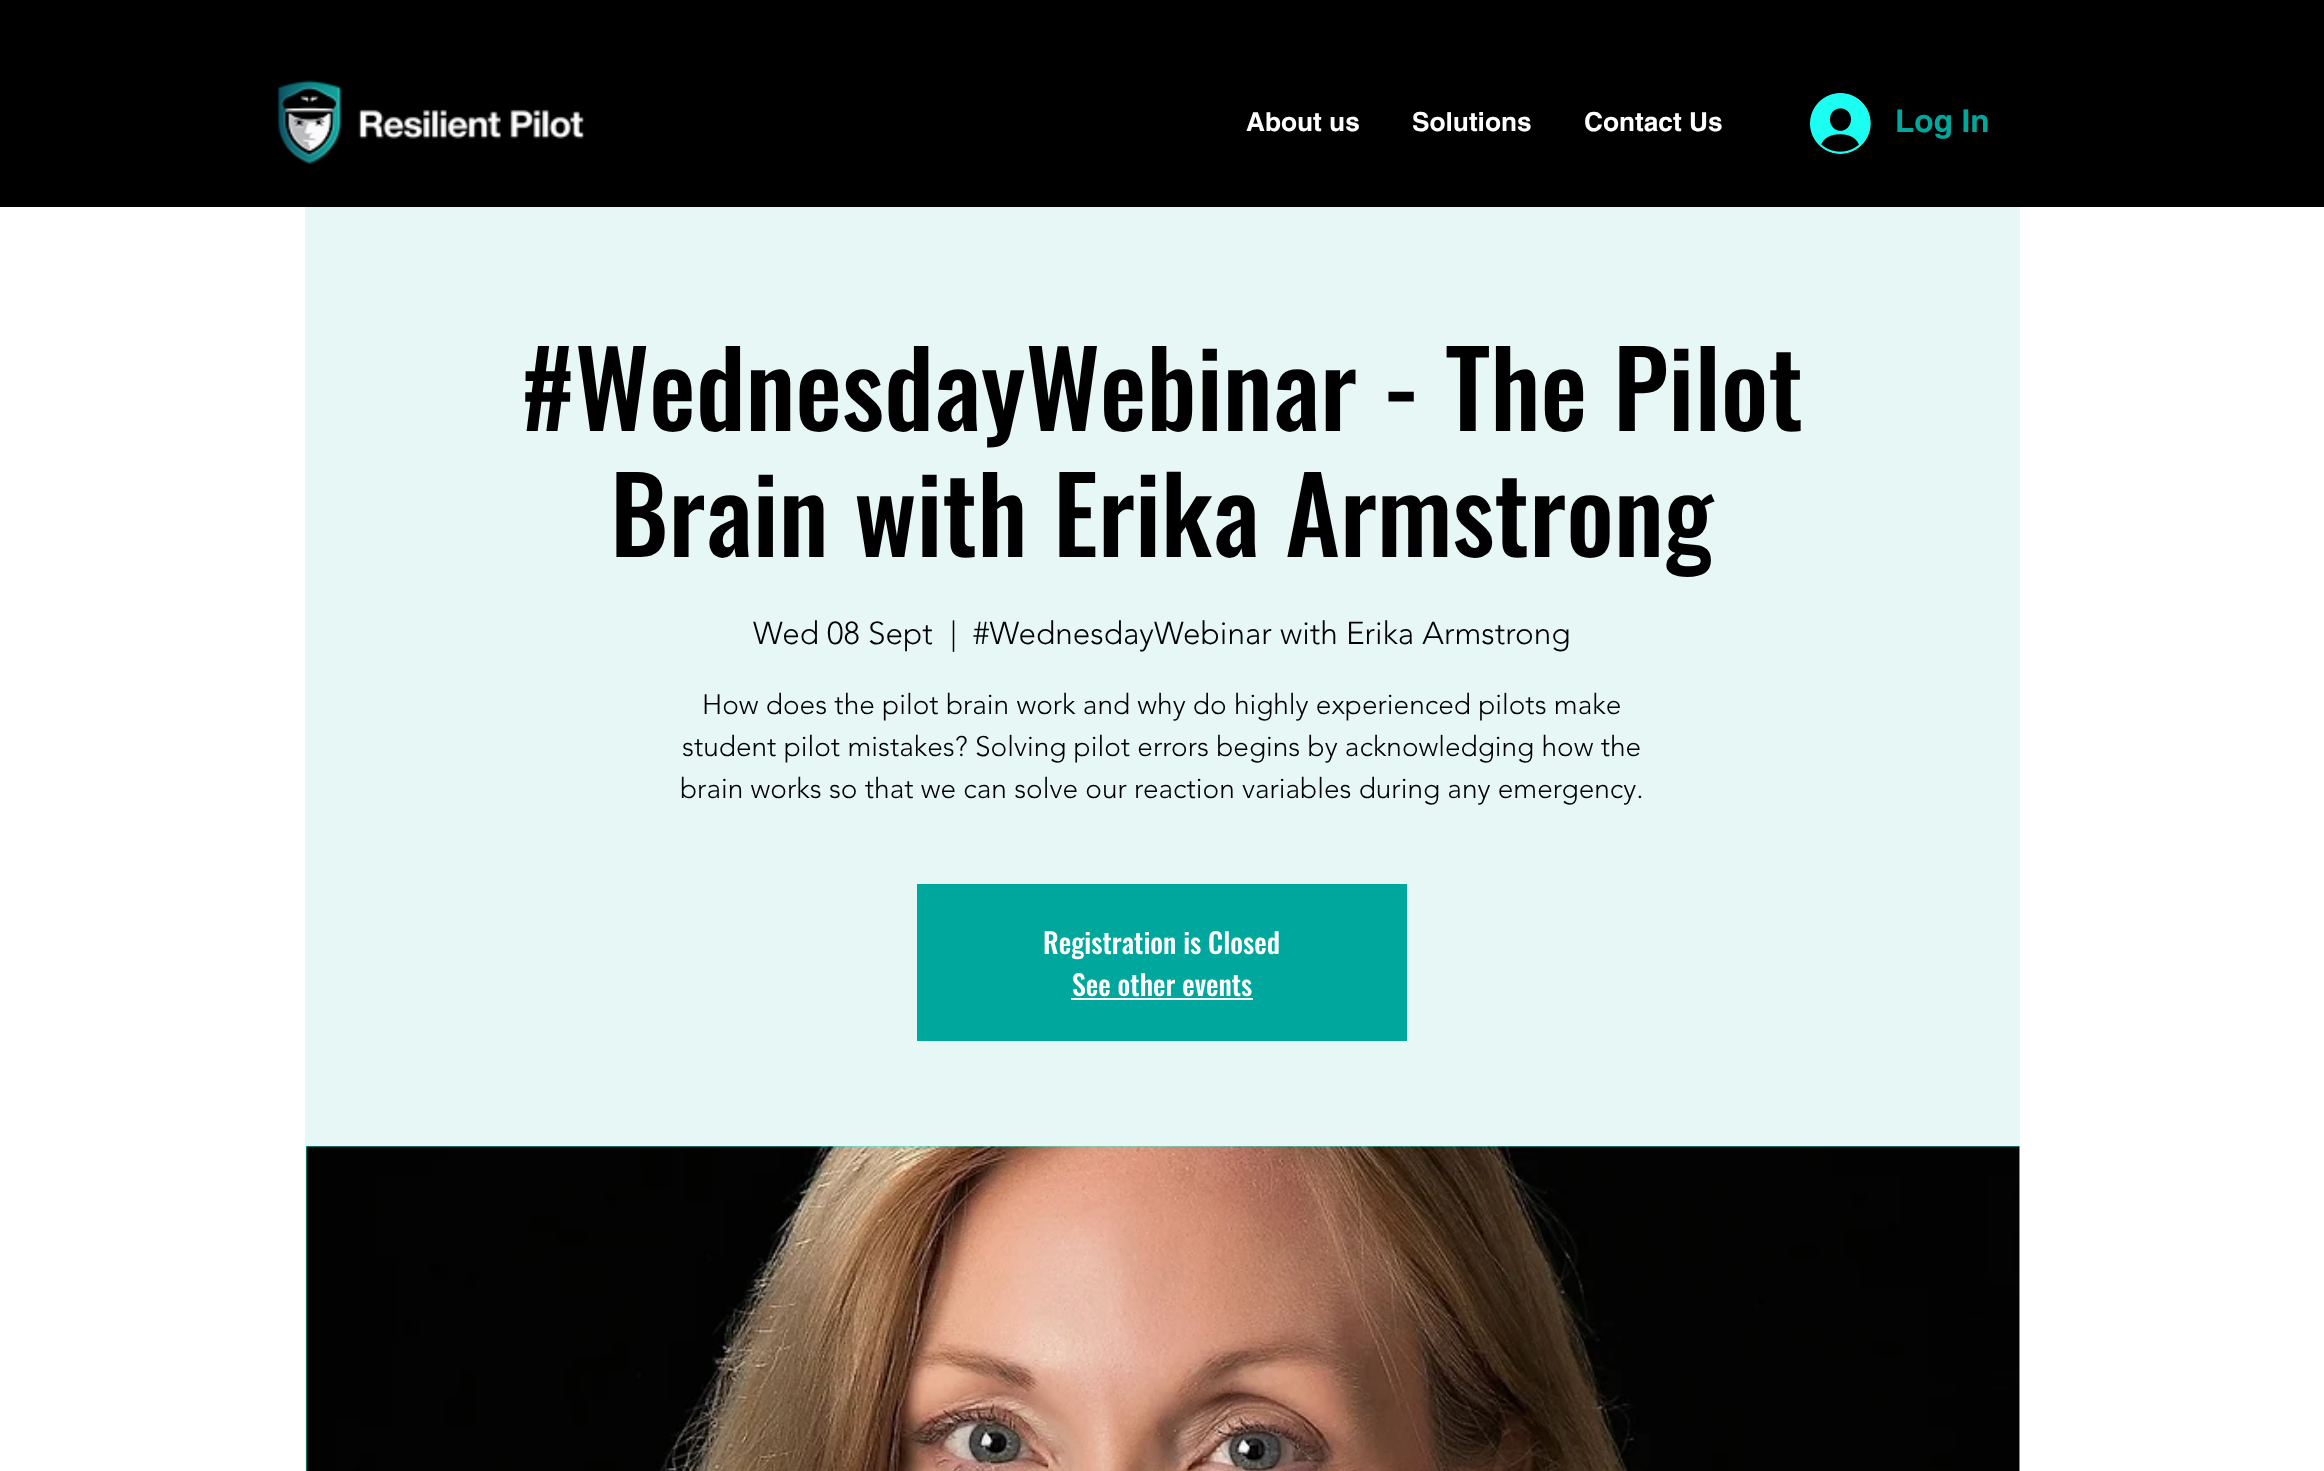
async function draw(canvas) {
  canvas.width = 2324
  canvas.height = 1471
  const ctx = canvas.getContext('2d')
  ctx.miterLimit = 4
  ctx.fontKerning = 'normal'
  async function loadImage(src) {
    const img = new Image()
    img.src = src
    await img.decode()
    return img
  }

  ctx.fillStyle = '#fff'
  ctx.fillRect(0, 0, 2324, 1471)
  ctx.fillStyle = '#000'
  ctx.fillRect(0, 0, 2324, 207)
  ctx.drawImage(await loadImage('image0.png'), 277, 80, 308, 85)
  ctx.font = 'bold 26.25px helvetica'
  ctx.fillStyle = '#fff'
  ctx.fillText('About us', 1246, 131)
  ctx.fillText('Solutions', 1412, 131)
  ctx.fillText('Contact Us', 1584, 131)
  ctx.drawImage(await loadImage('image1.png'), 1810, 93, 61, 61)
  ctx.font = 'bold 31.5px helvetica'
  ctx.fillStyle = '#00a79d'
  ctx.fillText('Log In', 1895, 132)
  ctx.fillStyle = '#e6f7f6'
  ctx.fillRect(305, 207, 1715, 1264)
  ctx.font = '500 105px Oswald'
  ctx.fillStyle = '#000'
  ctx.fillText('#WednesdayWebinar - The Pilot', 521, 431)
  ctx.fillText('Brain with Erika Armstrong', 610, 557)
  ctx.font = '300 31.5px "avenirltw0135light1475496"'
  ctx.fillText('Wed 08 Sept', 753, 644)
  ctx.fillText('|', 950, 644)
  ctx.fillText('#WednesdayWebinar with Erika Armstrong', 973, 644)
  ctx.font = '300 28px "avenirltw0135light1475496"'
  ctx.fillText('How does the pilot brain work and why do highly experienced pilots make', 702, 714)
  ctx.fillText('student pilot mistakes? Solving pilot errors begins by acknowledging how the', 682, 756)
  ctx.fillText('brain works so that we can solve our reaction variables during any emergency.', 680, 798)
  ctx.fillStyle = '#00a79d'
  ctx.fillRect(917, 884, 490, 157)
  ctx.font = '500 28px Oswald'
  ctx.fillStyle = '#fff'
  ctx.fillText('Registration is Closed', 1043, 954)
  ctx.fillText('See other events', 1072, 996)
  ctx.fillRect(1071, 998, 182, 2)
  ctx.fillStyle = '#1afff1'
  ctx.fillRect(306, 1146, 1714, 325)
  ctx.drawImage(await loadImage('image2.png'), 306, 1146, 1714, 325)
}

draw(document.querySelector('canvas'))
